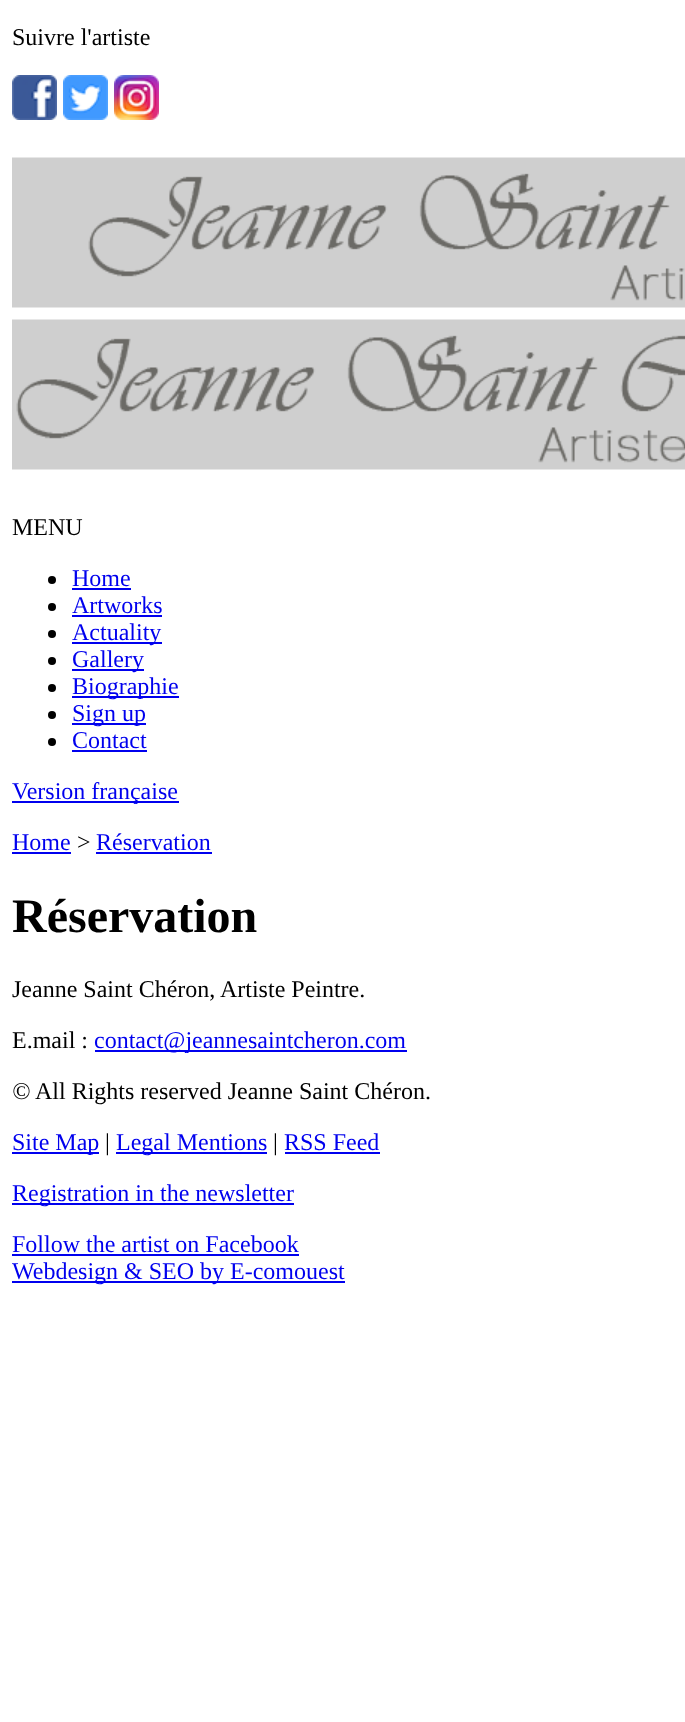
async function draw(canvas) {
  canvas.width = 685
  canvas.height = 1722
  const ctx = canvas.getContext('2d')
  ctx.miterLimit = 4
  ctx.fontKerning = 'normal'
  async function loadImage(src) {
    const img = new Image()
    img.src = src
    await img.decode()
    return img
  }

  ctx.fillStyle = '#fff'
  ctx.fillRect(0, 0, 685, 1722)
  ctx.font = '24px Liberation Serif'
  ctx.fillStyle = '#000'
  ctx.fillText('Suivre l\'artiste', 12, 45)
  ctx.drawImage(await loadImage('image0.png'), 12, 75, 45, 45)
  ctx.drawImage(await loadImage('image1.png'), 63, 75, 45, 45)
  ctx.drawImage(await loadImage('image2.png'), 114, 75, 45, 45)
  ctx.drawImage(await loadImage('image3.png'), 12, 157, 673, 151)
  ctx.drawImage(await loadImage('image4.png'), 12, 319, 673, 151)
  ctx.fillText('MENU', 12, 535)
  ctx.beginPath()
  ctx.arc(52, 580, 4, 0, 2 * Math.PI)
  ctx.fill()
  ctx.fillStyle = '#00e'
  ctx.fillText('Home', 72, 586)
  ctx.fillRect(72, 588, 59, 2)
  ctx.fillStyle = '#000'
  ctx.beginPath()
  ctx.arc(52, 607, 4, 0, 2 * Math.PI)
  ctx.fill()
  ctx.fillStyle = '#00e'
  ctx.fillText('Artworks', 72, 613)
  ctx.fillRect(72, 615, 90, 2)
  ctx.fillStyle = '#000'
  ctx.beginPath()
  ctx.arc(52, 634, 4, 0, 2 * Math.PI)
  ctx.fill()
  ctx.fillStyle = '#00e'
  ctx.fillRect(72, 642, 90, 2)
  ctx.fillText('Actuality', 72, 640)
  ctx.fillStyle = '#000'
  ctx.beginPath()
  ctx.arc(52, 661, 4, 0, 2 * Math.PI)
  ctx.fill()
  ctx.fillStyle = '#00e'
  ctx.fillRect(72, 669, 72, 2)
  ctx.fillText('Gallery', 72, 667)
  ctx.fillStyle = '#000'
  ctx.beginPath()
  ctx.arc(52, 688, 4, 0, 2 * Math.PI)
  ctx.fill()
  ctx.fillStyle = '#00e'
  ctx.fillRect(72, 696, 107, 2)
  ctx.fillText('Biographie', 72, 694)
  ctx.fillStyle = '#000'
  ctx.beginPath()
  ctx.arc(52, 715, 4, 0, 2 * Math.PI)
  ctx.fill()
  ctx.fillStyle = '#00e'
  ctx.fillRect(72, 723, 74, 2)
  ctx.fillText('Sign up', 72, 721)
  ctx.fillStyle = '#000'
  ctx.beginPath()
  ctx.arc(52, 742, 4, 0, 2 * Math.PI)
  ctx.fill()
  ctx.fillStyle = '#00e'
  ctx.fillText('Contact', 72, 748)
  ctx.fillRect(72, 750, 75, 2)
  ctx.fillRect(12, 801, 167, 2)
  ctx.fillText('Version française', 12, 799)
  ctx.fillText('Home', 12, 850)
  ctx.fillRect(12, 852, 59, 2)
  ctx.fillStyle = '#000'
  ctx.fillText('>', 77, 850)
  ctx.fillStyle = '#00e'
  ctx.fillText('Réservation', 96, 850)
  ctx.fillRect(96, 852, 116, 2)
  ctx.font = 'bold 48px Liberation Serif'
  ctx.fillStyle = '#000'
  ctx.fillText('Réservation', 12, 932)
  ctx.font = '24px Liberation Serif'
  ctx.fillText('Jeanne Saint Chéron, Artiste Peintre.', 12, 997)
  ctx.fillText('E.mail :', 12, 1048)
  ctx.fillStyle = '#00e'
  ctx.fillRect(95, 1050, 312, 2)
  ctx.fillText('contact@jeannesaintcheron.com', 94, 1048)
  ctx.font = 'italic 24px Liberation Serif'
  ctx.fillStyle = '#000'
  ctx.fillText('©', 12, 1099)
  ctx.font = '24px Liberation Serif'
  ctx.fillText('All Rights reserved Jeanne Saint Chéron.', 35, 1099)
  ctx.fillStyle = '#00e'
  ctx.fillRect(12, 1152, 87, 2)
  ctx.fillText('Site Map', 12, 1150)
  ctx.fillStyle = '#000'
  ctx.fillText('|', 105, 1150)
  ctx.fillStyle = '#00e'
  ctx.fillRect(116, 1152, 151, 2)
  ctx.fillText('Legal Mentions', 116, 1150)
  ctx.fillStyle = '#000'
  ctx.fillText('|', 273, 1150)
  ctx.fillStyle = '#00e'
  ctx.fillText('RSS Feed', 284, 1150)
  ctx.fillRect(285, 1152, 95, 2)
  ctx.fillRect(12, 1203, 282, 2)
  ctx.fillText('Registration in the newsletter', 12, 1201)
  ctx.fillText('Follow the artist on Facebook', 12, 1252)
  ctx.fillRect(12, 1254, 287, 2)
  ctx.fillRect(12, 1281, 333, 2)
  ctx.fillText('Webdesign & SEO by E-comouest', 12, 1279)
}

draw(document.querySelector('canvas'))
